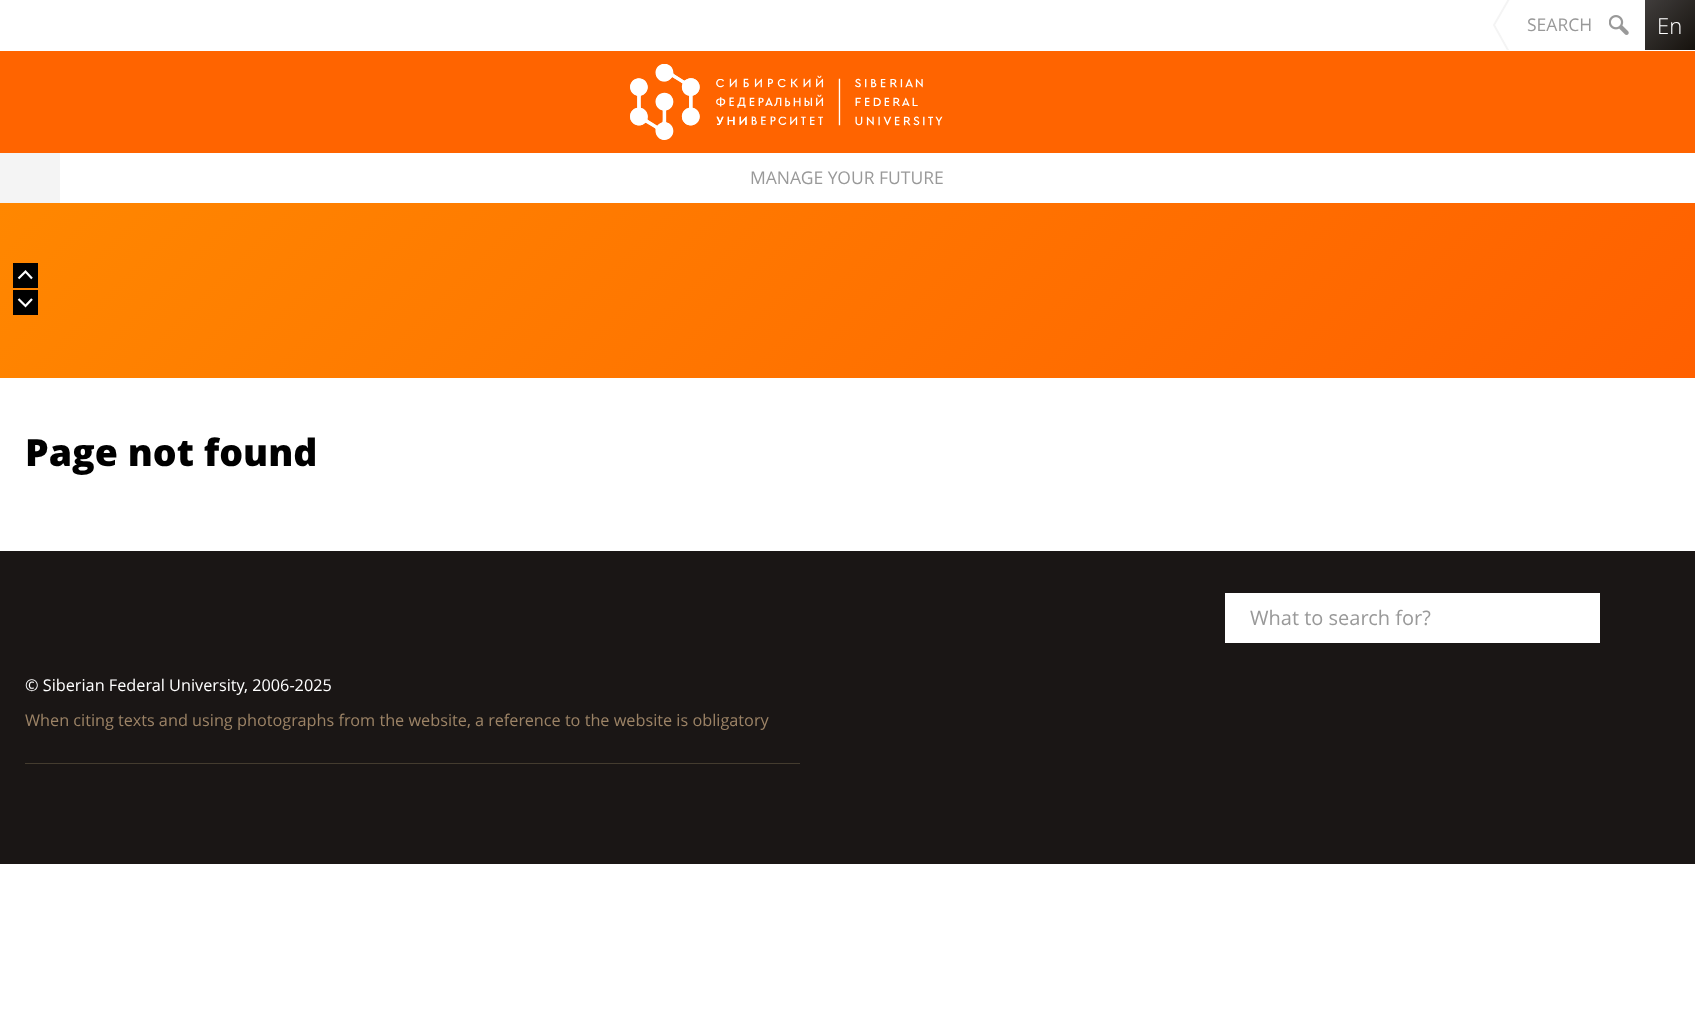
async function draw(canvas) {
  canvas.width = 1695
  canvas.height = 1017
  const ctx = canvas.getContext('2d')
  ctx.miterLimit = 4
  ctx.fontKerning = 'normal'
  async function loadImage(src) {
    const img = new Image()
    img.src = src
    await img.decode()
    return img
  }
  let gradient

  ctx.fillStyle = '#fff'
  ctx.fillRect(0, 0, 1695, 1017)
  ctx.save()
  ctx.beginPath()
  ctx.rect(1491, 0, 19, 50)
  ctx.clip()
  ctx.beginPath()
  ctx.moveTo(1509, -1)
  ctx.lineTo(1494, 25)
  ctx.lineTo(1508.5, 51)
  ctx.strokeStyle = '#f4f4f4'
  ctx.lineWidth = 1.9
  ctx.stroke()
  ctx.restore()
  ctx.font = '17.5px Open Sans'
  ctx.fillStyle = '#999'
  ctx.fillText('SEARCH', 1527, 31)
  ctx.drawImage(await loadImage('image0.png'), 1609, 15, 20, 20)
  gradient = ctx.createLinearGradient(1645, 0, 1695, 50)
  gradient.addColorStop(0, '#403d3c')
  gradient.addColorStop(1, '#16120d')
  ctx.fillStyle = gradient
  ctx.fillRect(1645, 0, 50, 50)
  ctx.font = '300 22px Open Sans'
  ctx.fillStyle = '#fff'
  ctx.fillText('En', 1657, 34)
  ctx.fillStyle = '#ff6400'
  ctx.fillRect(0, 51, 1695, 102)
  ctx.drawImage(await loadImage('image1.png'), 630, 64, 313, 76)
  ctx.fillStyle = '#f4f4f4'
  ctx.fillRect(0, 153, 60, 50)
  ctx.font = '17.5px Open Sans'
  ctx.fillStyle = '#999'
  ctx.fillText('MANAGE YOUR FUTURE', 750, 184)
  gradient = ctx.createLinearGradient(380, -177, 1315, 758)
  gradient.addColorStop(0, '#ff8700')
  gradient.addColorStop(1, '#ff6000')
  ctx.fillStyle = gradient
  ctx.fillRect(0, 203, 1695, 175)
  ctx.fillStyle = '#000'
  ctx.fillRect(13, 263, 25, 25)
  ctx.beginPath()
  ctx.moveTo(18.5, 278.5)
  ctx.lineTo(25.5, 271.5)
  ctx.lineTo(32, 278.5)
  ctx.strokeStyle = '#fff'
  ctx.lineWidth = 2.2
  ctx.stroke()
  ctx.fillRect(13, 290, 25, 25)
  ctx.beginPath()
  ctx.moveTo(18.5, 299)
  ctx.lineTo(25.5, 306)
  ctx.lineTo(32, 299)
  ctx.stroke()
  ctx.font = '800 37.5px Open Sans'
  ctx.fillText('Page not found', 25, 466)
  ctx.fillStyle = '#1a1615'
  ctx.fillRect(0, 551, 1695, 313)
  ctx.fillStyle = '#fff'
  ctx.fillRect(1225, 593, 375, 50)
  ctx.font = '20px Open Sans'
  ctx.fillStyle = '#999'
  ctx.fillText('What to search for?', 1250, 625)
  ctx.fillStyle = '#443c2f'
  ctx.fillRect(25, 763, 775, 1)
  ctx.font = '16.25px Open Sans'
  ctx.fillStyle = '#fff'
  ctx.fillText('© Siberian Federal University, 2006-2025', 25, 691)
  ctx.fillStyle = '#9c8366'
  ctx.fillText('When citing texts and using photographs from the website, a reference to the website is obligatory', 25, 726)
}

draw(document.querySelector('canvas'))
